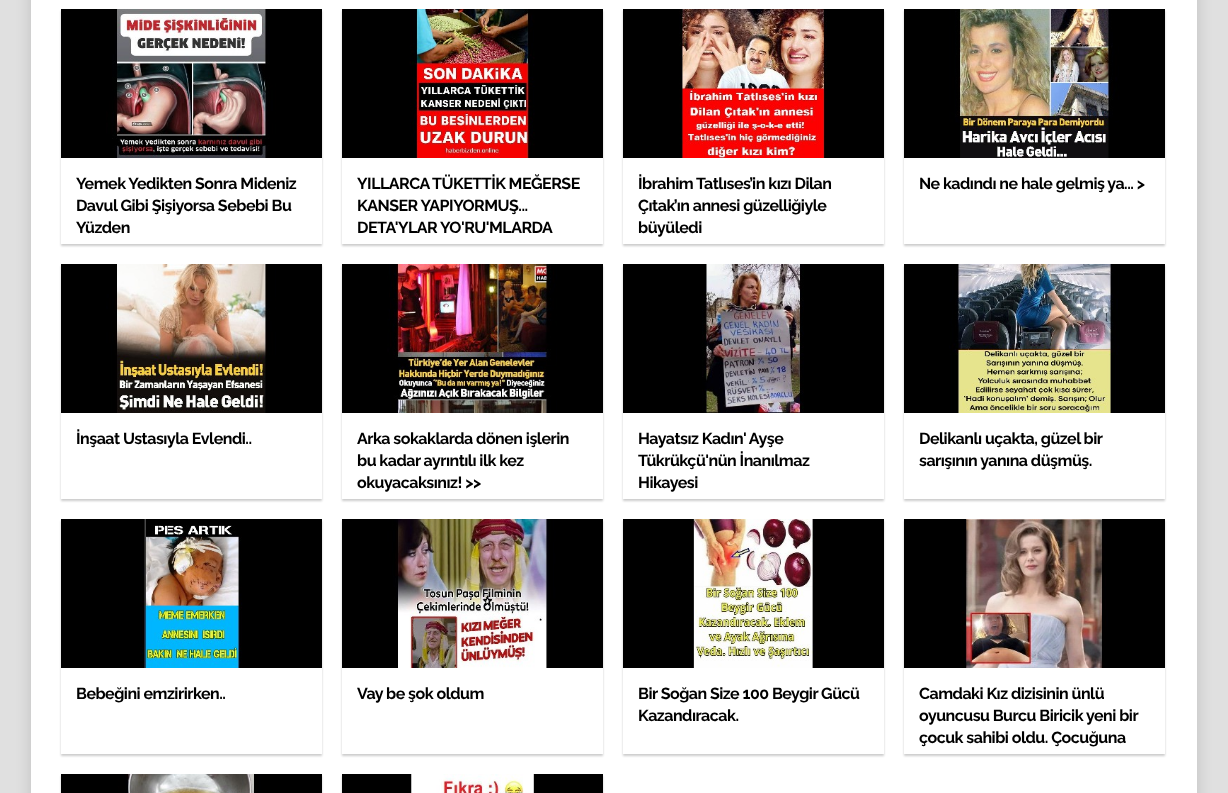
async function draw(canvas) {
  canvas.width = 1228
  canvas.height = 793
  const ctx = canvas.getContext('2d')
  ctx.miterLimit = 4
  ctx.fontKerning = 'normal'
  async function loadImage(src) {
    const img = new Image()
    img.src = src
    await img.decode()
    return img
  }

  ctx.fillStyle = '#e0e0e0'
  ctx.fillRect(0, 0, 1228, 793)
  ctx.fillStyle = '#00000026'
  ctx.filter = 'blur(7.5px)'
  ctx.beginPath()
  ctx.rect(31, -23, 1166, 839)
  ctx.fill()
  ctx.filter = 'none'
  ctx.fillStyle = '#fff'
  ctx.fillRect(31, 0, 1166, 793)
  ctx.save()
  ctx.beginPath()
  ctx.moveTo(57, 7)
  ctx.lineTo(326, 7)
  ctx.lineTo(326, 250)
  ctx.lineTo(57, 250)
  ctx.closePath()
  ctx.moveTo(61, 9)
  ctx.lineTo(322, 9)
  ctx.lineTo(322, 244)
  ctx.lineTo(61, 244)
  ctx.closePath()
  ctx.clip('evenodd')
  ctx.fillStyle = '#00000033'
  ctx.filter = 'blur(1px)'
  ctx.beginPath()
  ctx.rect(61, 11, 261, 235)
  ctx.fill()
  ctx.filter = 'none'
  ctx.restore()
  ctx.drawImage(await loadImage('image0.png'), 61, 9, 261, 149)
  ctx.letterSpacing = '-0.5px'
  ctx.font = 'bold 16px Raleway'
  ctx.fillStyle = '#000'
  ctx.fillText('Yemek Yedikten Sonra Mideniz', 76, 189)
  ctx.fillText('Davul Gibi Şişiyorsa Sebebi Bu', 76, 211)
  ctx.fillText('Yüzden', 76, 233)
  ctx.save()
  ctx.beginPath()
  ctx.moveTo(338, 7)
  ctx.lineTo(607, 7)
  ctx.lineTo(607, 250)
  ctx.lineTo(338, 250)
  ctx.closePath()
  ctx.moveTo(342, 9)
  ctx.lineTo(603, 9)
  ctx.lineTo(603, 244)
  ctx.lineTo(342, 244)
  ctx.closePath()
  ctx.clip('evenodd')
  ctx.fillStyle = '#00000033'
  ctx.filter = 'blur(1px)'
  ctx.beginPath()
  ctx.rect(342, 11, 261, 235)
  ctx.fill()
  ctx.filter = 'none'
  ctx.restore()
  ctx.drawImage(await loadImage('image1.png'), 342, 9, 261, 149)
  ctx.fillText('YILLARCA TÜKETTİK MEĞERSE', 357, 189)
  ctx.fillText('KANSER YAPIYORMUŞ...', 357, 211)
  ctx.fillText('DETA\'YLAR YO\'RU\'MLARDA', 357, 233)
  ctx.save()
  ctx.beginPath()
  ctx.moveTo(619, 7)
  ctx.lineTo(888, 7)
  ctx.lineTo(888, 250)
  ctx.lineTo(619, 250)
  ctx.closePath()
  ctx.moveTo(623, 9)
  ctx.lineTo(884, 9)
  ctx.lineTo(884, 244)
  ctx.lineTo(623, 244)
  ctx.closePath()
  ctx.clip('evenodd')
  ctx.fillStyle = '#00000033'
  ctx.filter = 'blur(1px)'
  ctx.beginPath()
  ctx.rect(623, 11, 261, 235)
  ctx.fill()
  ctx.filter = 'none'
  ctx.restore()
  ctx.drawImage(await loadImage('image2.png'), 623, 9, 261, 149)
  ctx.fillText('İbrahim Tatlıses’in kızı Dilan', 638, 189)
  ctx.fillText('Çıtak’ın annesi güzelliğiyle', 638, 211)
  ctx.fillText('büyüledi', 638, 233)
  ctx.save()
  ctx.beginPath()
  ctx.moveTo(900, 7)
  ctx.lineTo(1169, 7)
  ctx.lineTo(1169, 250)
  ctx.lineTo(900, 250)
  ctx.closePath()
  ctx.moveTo(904, 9)
  ctx.lineTo(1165, 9)
  ctx.lineTo(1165, 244)
  ctx.lineTo(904, 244)
  ctx.closePath()
  ctx.clip('evenodd')
  ctx.fillStyle = '#00000033'
  ctx.filter = 'blur(1px)'
  ctx.beginPath()
  ctx.rect(904, 11, 261, 235)
  ctx.fill()
  ctx.filter = 'none'
  ctx.restore()
  ctx.drawImage(await loadImage('image3.png'), 904, 9, 261, 149)
  ctx.fillText('Ne kadındı ne hale gelmiş ya... >', 919, 189)
  ctx.save()
  ctx.beginPath()
  ctx.moveTo(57, 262)
  ctx.lineTo(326, 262)
  ctx.lineTo(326, 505)
  ctx.lineTo(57, 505)
  ctx.closePath()
  ctx.moveTo(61, 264)
  ctx.lineTo(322, 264)
  ctx.lineTo(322, 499)
  ctx.lineTo(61, 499)
  ctx.closePath()
  ctx.clip('evenodd')
  ctx.fillStyle = '#00000033'
  ctx.filter = 'blur(1px)'
  ctx.beginPath()
  ctx.rect(61, 266, 261, 235)
  ctx.fill()
  ctx.filter = 'none'
  ctx.restore()
  ctx.drawImage(await loadImage('image4.png'), 61, 264, 261, 149)
  ctx.fillText('İnşaat Ustasıyla Evlendi..', 76, 444)
  ctx.save()
  ctx.beginPath()
  ctx.moveTo(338, 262)
  ctx.lineTo(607, 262)
  ctx.lineTo(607, 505)
  ctx.lineTo(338, 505)
  ctx.closePath()
  ctx.moveTo(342, 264)
  ctx.lineTo(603, 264)
  ctx.lineTo(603, 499)
  ctx.lineTo(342, 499)
  ctx.closePath()
  ctx.clip('evenodd')
  ctx.fillStyle = '#00000033'
  ctx.filter = 'blur(1px)'
  ctx.beginPath()
  ctx.rect(342, 266, 261, 235)
  ctx.fill()
  ctx.filter = 'none'
  ctx.restore()
  ctx.drawImage(await loadImage('image5.png'), 342, 264, 261, 149)
  ctx.fillText('Arka sokaklarda dönen işlerin', 357, 444)
  ctx.fillText('bu kadar ayrıntılı ilk kez', 357, 466)
  ctx.fillText('okuyacaksınız! >>', 357, 488)
  ctx.save()
  ctx.beginPath()
  ctx.moveTo(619, 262)
  ctx.lineTo(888, 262)
  ctx.lineTo(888, 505)
  ctx.lineTo(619, 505)
  ctx.closePath()
  ctx.moveTo(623, 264)
  ctx.lineTo(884, 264)
  ctx.lineTo(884, 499)
  ctx.lineTo(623, 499)
  ctx.closePath()
  ctx.clip('evenodd')
  ctx.fillStyle = '#00000033'
  ctx.filter = 'blur(1px)'
  ctx.beginPath()
  ctx.rect(623, 266, 261, 235)
  ctx.fill()
  ctx.filter = 'none'
  ctx.restore()
  ctx.drawImage(await loadImage('image6.png'), 623, 264, 261, 149)
  ctx.fillText('Hayatsız Kadın\' Ayşe', 638, 444)
  ctx.fillText('Tükrükçü\'nün İnanılmaz', 638, 466)
  ctx.fillText('Hikayesi', 638, 488)
  ctx.save()
  ctx.beginPath()
  ctx.moveTo(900, 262)
  ctx.lineTo(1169, 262)
  ctx.lineTo(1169, 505)
  ctx.lineTo(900, 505)
  ctx.closePath()
  ctx.moveTo(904, 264)
  ctx.lineTo(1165, 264)
  ctx.lineTo(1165, 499)
  ctx.lineTo(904, 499)
  ctx.closePath()
  ctx.clip('evenodd')
  ctx.fillStyle = '#00000033'
  ctx.filter = 'blur(1px)'
  ctx.beginPath()
  ctx.rect(904, 266, 261, 235)
  ctx.fill()
  ctx.filter = 'none'
  ctx.restore()
  ctx.drawImage(await loadImage('image7.png'), 904, 264, 261, 149)
  ctx.fillText('Delikanlı uçakta, güzel bir', 919, 444)
  ctx.fillText('sarışının yanına düşmüş.', 919, 466)
  ctx.save()
  ctx.beginPath()
  ctx.moveTo(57, 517)
  ctx.lineTo(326, 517)
  ctx.lineTo(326, 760)
  ctx.lineTo(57, 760)
  ctx.closePath()
  ctx.moveTo(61, 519)
  ctx.lineTo(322, 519)
  ctx.lineTo(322, 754)
  ctx.lineTo(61, 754)
  ctx.closePath()
  ctx.clip('evenodd')
  ctx.fillStyle = '#00000033'
  ctx.filter = 'blur(1px)'
  ctx.beginPath()
  ctx.rect(61, 521, 261, 235)
  ctx.fill()
  ctx.filter = 'none'
  ctx.restore()
  ctx.drawImage(await loadImage('image8.png'), 61, 519, 261, 149)
  ctx.fillText('Bebeğini emzirirken..', 76, 699)
  ctx.save()
  ctx.beginPath()
  ctx.moveTo(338, 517)
  ctx.lineTo(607, 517)
  ctx.lineTo(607, 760)
  ctx.lineTo(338, 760)
  ctx.closePath()
  ctx.moveTo(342, 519)
  ctx.lineTo(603, 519)
  ctx.lineTo(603, 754)
  ctx.lineTo(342, 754)
  ctx.closePath()
  ctx.clip('evenodd')
  ctx.fillStyle = '#00000033'
  ctx.filter = 'blur(1px)'
  ctx.beginPath()
  ctx.rect(342, 521, 261, 235)
  ctx.fill()
  ctx.filter = 'none'
  ctx.restore()
  ctx.drawImage(await loadImage('image9.png'), 342, 519, 261, 149)
  ctx.fillText('Vay be şok oldum', 357, 699)
  ctx.save()
  ctx.beginPath()
  ctx.moveTo(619, 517)
  ctx.lineTo(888, 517)
  ctx.lineTo(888, 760)
  ctx.lineTo(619, 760)
  ctx.closePath()
  ctx.moveTo(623, 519)
  ctx.lineTo(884, 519)
  ctx.lineTo(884, 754)
  ctx.lineTo(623, 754)
  ctx.closePath()
  ctx.clip('evenodd')
  ctx.fillStyle = '#00000033'
  ctx.filter = 'blur(1px)'
  ctx.beginPath()
  ctx.rect(623, 521, 261, 235)
  ctx.fill()
  ctx.filter = 'none'
  ctx.restore()
  ctx.drawImage(await loadImage('image10.png'), 623, 519, 261, 149)
  ctx.fillText('Bir Soğan Size 100 Beygir Gücü', 638, 699)
  ctx.fillText('Kazandıracak.', 638, 721)
  ctx.save()
  ctx.beginPath()
  ctx.moveTo(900, 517)
  ctx.lineTo(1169, 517)
  ctx.lineTo(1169, 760)
  ctx.lineTo(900, 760)
  ctx.closePath()
  ctx.moveTo(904, 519)
  ctx.lineTo(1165, 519)
  ctx.lineTo(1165, 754)
  ctx.lineTo(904, 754)
  ctx.closePath()
  ctx.clip('evenodd')
  ctx.fillStyle = '#00000033'
  ctx.filter = 'blur(1px)'
  ctx.beginPath()
  ctx.rect(904, 521, 261, 235)
  ctx.fill()
  ctx.filter = 'none'
  ctx.restore()
  ctx.drawImage(await loadImage('image11.png'), 904, 519, 261, 149)
  ctx.fillText('Camdaki Kız dizisinin ünlü', 919, 699)
  ctx.fillText('oyuncusu Burcu Biricik yeni bir', 919, 721)
  ctx.fillText('çocuk sahibi oldu. Çocuğuna', 919, 743)
  ctx.fillStyle = '#00000033'
  ctx.filter = 'blur(1px)'
  ctx.beginPath()
  ctx.rect(61, 776, 261, 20)
  ctx.fill()
  ctx.filter = 'none'
  ctx.drawImage(await loadImage('image12.png'), 61, 774, 261, 19)
  ctx.filter = 'blur(1px)'
  ctx.beginPath()
  ctx.rect(342, 776, 261, 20)
  ctx.fill()
  ctx.filter = 'none'
  ctx.drawImage(await loadImage('image13.png'), 342, 774, 261, 19)
}

draw(document.querySelector('canvas'))
